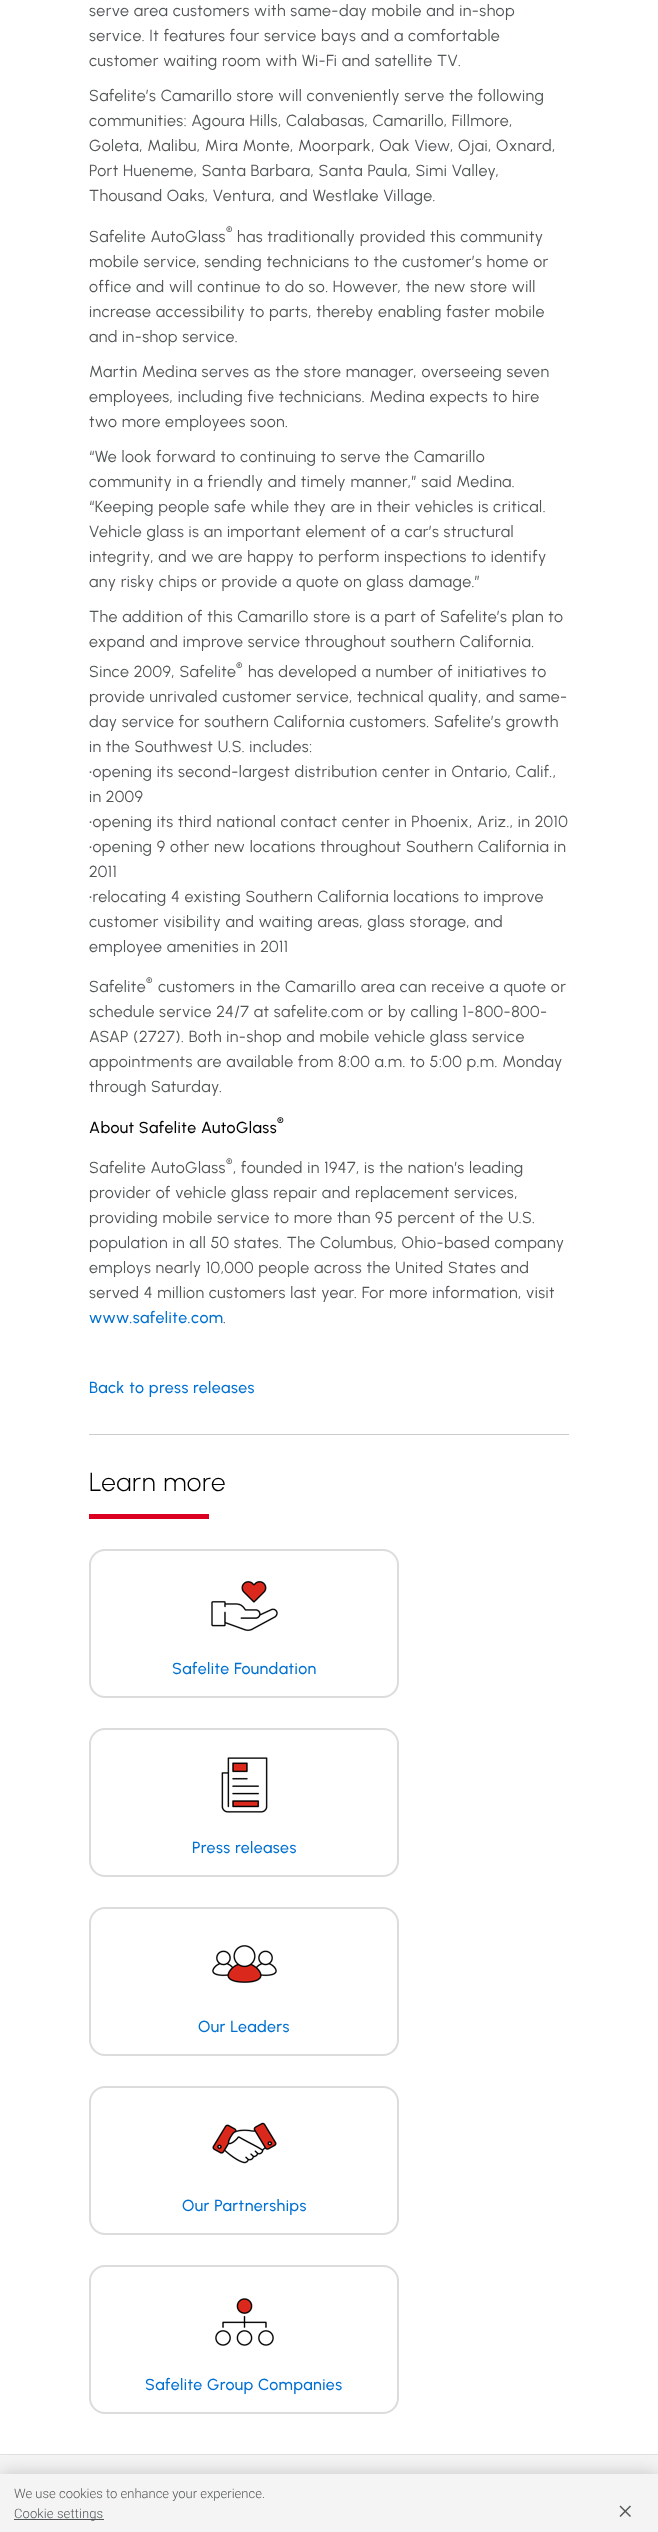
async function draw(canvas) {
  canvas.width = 658
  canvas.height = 2532
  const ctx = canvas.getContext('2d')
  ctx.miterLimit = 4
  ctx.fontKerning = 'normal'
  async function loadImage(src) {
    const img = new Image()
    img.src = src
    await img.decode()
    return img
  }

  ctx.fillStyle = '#fff'
  ctx.fillRect(0, 0, 658, 2532)
  ctx.letterSpacing = '0.48px'
  ctx.font = '16px Urbanist'
  ctx.fillStyle = '#525656'
  ctx.fillText('serve area customers with same-day mobile and in-shop', 89, 16)
  ctx.fillText('service. It features four service bays and a comfortable', 89, 41)
  ctx.fillText('customer waiting room with Wi-Fi and satellite TV.', 89, 66)
  ctx.fillText('Safelite’s Camarillo store will conveniently serve the following', 89, 101)
  ctx.fillText('communities: Agoura Hills, Calabasas, Camarillo, Fillmore,', 89, 126)
  ctx.fillText('Goleta, Malibu, Mira Monte, Moorpark, Oak View, Ojai, Oxnard,', 89, 151)
  ctx.fillText('Port Hueneme, Santa Barbara, Santa Paula, Simi Valley,', 89, 176)
  ctx.fillText('Thousand Oaks, Ventura, and Westlake Village.', 89, 201)
  ctx.fillText('Safelite AutoGlass', 89, 242)
  ctx.font = '13px Urbanist'
  ctx.fillText('®', 226, 235)
  ctx.font = '16px Urbanist'
  ctx.fillText('has traditionally provided this community', 237, 242)
  ctx.fillText('mobile service, sending technicians to the customer’s home or', 89, 267)
  ctx.fillText('office and will continue to do so. However, the new store will', 89, 292)
  ctx.fillText('increase accessibility to parts, thereby enabling faster mobile', 89, 317)
  ctx.fillText('and in-shop service.', 89, 342)
  ctx.fillText('Martin Medina serves as the store manager, overseeing seven', 89, 377)
  ctx.fillText('employees, including five technicians. Medina expects to hire', 89, 402)
  ctx.fillText('two more employees soon.', 89, 427)
  ctx.fillText('“We look forward to continuing to serve the Camarillo', 89, 462)
  ctx.fillText('community in a friendly and timely manner,” said Medina.', 89, 487)
  ctx.fillText('“Keeping people safe while they are in their vehicles is critical.', 89, 512)
  ctx.fillText('Vehicle glass is an important element of a car’s structural', 89, 537)
  ctx.fillText('integrity, and we are happy to perform inspections to identify', 89, 562)
  ctx.fillText('any risky chips or provide a quote on glass damage.”', 89, 587)
  ctx.fillText('The addition of this Camarillo store is a part of Safelite’s plan to', 89, 622)
  ctx.fillText('expand and improve service throughout southern California.', 89, 647)
  ctx.fillText('Since 2009, Safelite', 89, 677)
  ctx.font = '13px Urbanist'
  ctx.fillText('®', 236, 671)
  ctx.font = '16px Urbanist'
  ctx.fillText('has developed a number of initiatives to', 248, 677)
  ctx.fillText('provide unrivaled customer service, technical quality, and same-', 89, 702)
  ctx.fillText('day service for southern California customers. Safelite’s growth', 89, 727)
  ctx.fillText('in the Southwest U.S. includes:', 89, 752)
  ctx.fillText('•opening its second-largest distribution center in Ontario, Calif.,', 89, 777)
  ctx.fillText('in 2009', 89, 802)
  ctx.fillText('•opening its third national contact center in Phoenix, Ariz., in 2010', 89, 827)
  ctx.fillText('•opening 9 other new locations throughout Southern California in', 89, 852)
  ctx.fillText('2011', 89, 877)
  ctx.fillText('•relocating 4 existing Southern California locations to improve', 89, 902)
  ctx.fillText('customer visibility and waiting areas, glass storage, and', 89, 927)
  ctx.fillText('employee amenities in 2011', 89, 952)
  ctx.fillText('Safelite', 89, 992)
  ctx.font = '13px Urbanist'
  ctx.fillText('®', 146, 986)
  ctx.font = '16px Urbanist'
  ctx.fillText('customers in the Camarillo area can receive a quote or', 158, 992)
  ctx.fillText('schedule service 24/7 at safelite.com or by calling 1-800-800-', 89, 1017)
  ctx.fillText('ASAP (2727). Both in-shop and mobile vehicle glass service', 89, 1042)
  ctx.fillText('appointments are available from 8:00 a.m. to 5:00 p.m. Monday', 89, 1067)
  ctx.fillText('through Saturday.', 89, 1092)
  ctx.font = '500 16px Urbanist'
  ctx.fillStyle = '#000'
  ctx.fillText('About Safelite AutoGlass', 89, 1133)
  ctx.font = '500 13px Urbanist'
  ctx.fillText('®', 277, 1126)
  ctx.font = '16px Urbanist'
  ctx.fillStyle = '#525656'
  ctx.fillText('Safelite AutoGlass', 89, 1173)
  ctx.font = '13px Urbanist'
  ctx.fillText('®', 226, 1167)
  ctx.font = '16px Urbanist'
  ctx.fillText(', founded in 1947, is the nation’s leading', 233, 1173)
  ctx.fillText('provider of vehicle glass repair and replacement services,', 89, 1198)
  ctx.fillText('providing mobile service to more than 95 percent of the U.S.', 89, 1223)
  ctx.fillText('population in all 50 states. The Columbus, Ohio-based company', 89, 1248)
  ctx.fillText('employs nearly 10,000 people across the United States and', 89, 1273)
  ctx.fillText('served 4 million customers last year. For more information, visit', 89, 1298)
  ctx.font = '500 16px Urbanist'
  ctx.fillStyle = '#0070d1'
  ctx.fillText('www.safelite.com', 89, 1323)
  ctx.font = '16px Urbanist'
  ctx.fillStyle = '#525656'
  ctx.fillText('.', 223, 1323)
  ctx.font = '500 16px Urbanist'
  ctx.fillStyle = '#0070d1'
  ctx.fillText('Back to press releases', 89, 1393)
  ctx.fillStyle = '#cacbcc'
  ctx.fillRect(89, 1434, 480, 1)
  ctx.letterSpacing = '0.75px'
  ctx.font = '300 26px Urbanist'
  ctx.fillStyle = '#000'
  ctx.fillText('Learn more', 89, 1491)
  ctx.fillStyle = '#db0020'
  ctx.fillRect(89, 1514, 120, 5)
  ctx.beginPath()
  ctx.roundRect(90, 1550, 308, 147, 15)
  ctx.strokeStyle = '#dcdcdc'
  ctx.lineWidth = 2
  ctx.stroke()
  ctx.drawImage(await loadImage('image0.png'), 211, 1580, 67, 52)
  ctx.letterSpacing = '0.48px'
  ctx.font = '500 16px Urbanist'
  ctx.fillStyle = '#0070d1'
  ctx.fillText('Safelite Foundation', 172, 1674)
  ctx.beginPath()
  ctx.roundRect(90, 1729, 308, 147, 15)
  ctx.stroke()
  ctx.drawImage(await loadImage('image1.png'), 221, 1757, 47, 56)
  ctx.fillText('Press releases', 192, 1853)
  ctx.beginPath()
  ctx.roundRect(90, 1908, 308, 147, 15)
  ctx.stroke()
  ctx.drawImage(await loadImage('image2.png'), 212, 1945, 65, 38)
  ctx.fillText('Our Leaders', 198, 2032)
  ctx.beginPath()
  ctx.roundRect(90, 2087, 308, 147, 15)
  ctx.stroke()
  ctx.drawImage(await loadImage('image3.png'), 212, 2122, 65, 42)
  ctx.fillText('Our Partnerships', 182, 2211)
  ctx.beginPath()
  ctx.roundRect(90, 2266, 308, 147, 15)
  ctx.stroke()
  ctx.drawImage(await loadImage('image4.png'), 215, 2298, 59, 48)
  ctx.fillText('Safelite Group Companies', 145, 2390)
  ctx.fillStyle = '#f4f4f4'
  ctx.fillRect(0, 2455, 658, 19)
  ctx.fillStyle = '#e0e0e0'
  ctx.fillRect(0, 2454, 658, 1)
  ctx.fillStyle = '#00000033'
  ctx.filter = 'blur(9px)'
  ctx.beginPath()
  ctx.rect(0, 2474, 658, 58)
  ctx.fill()
  ctx.filter = 'none'
  ctx.fillStyle = '#f4f4f4'
  ctx.fillRect(0, 2474, 658, 58)
  ctx.letterSpacing = '0px'
  ctx.font = '300 13px Roboto'
  ctx.fillStyle = '#525656'
  ctx.fillText('We use cookies to enhance your experience.', 14, 2498)
  ctx.fillRect(14, 2519, 90, 1)
  ctx.letterSpacing = '0.1px'
  ctx.fillText('Cookie settings', 14, 2518)
  ctx.beginPath()
  ctx.moveTo(620.5, 2505.5)
  ctx.lineTo(631, 2516)
  ctx.lineTo(630, 2517)
  ctx.lineTo(619.5, 2506.5)
  ctx.closePath()
  ctx.fill()
  ctx.beginPath()
  ctx.moveTo(619.5, 2516)
  ctx.lineTo(630, 2505.5)
  ctx.lineTo(631, 2506.5)
  ctx.lineTo(620.5, 2517)
  ctx.closePath()
  ctx.fill()
}

draw(document.querySelector('canvas'))
